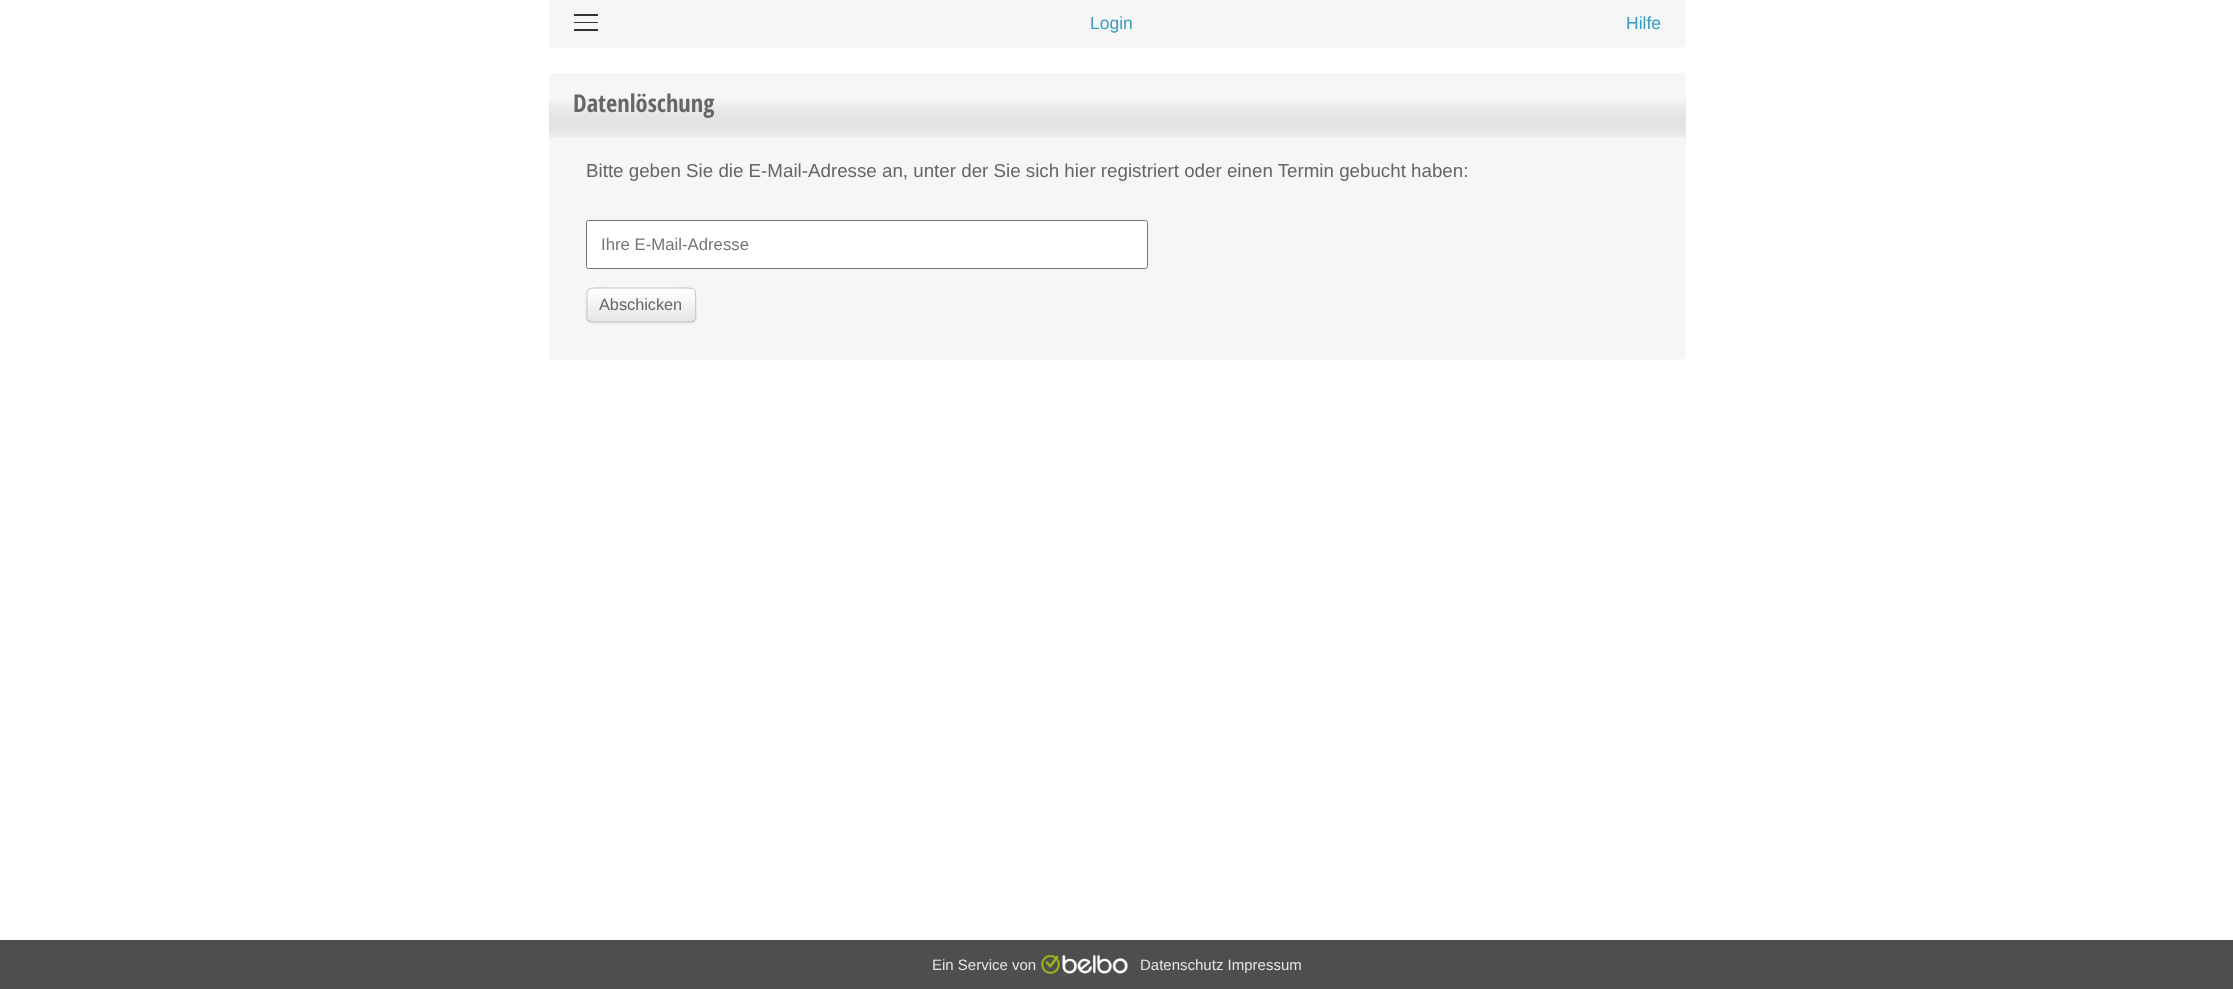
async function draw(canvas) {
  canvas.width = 2233
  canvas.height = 989
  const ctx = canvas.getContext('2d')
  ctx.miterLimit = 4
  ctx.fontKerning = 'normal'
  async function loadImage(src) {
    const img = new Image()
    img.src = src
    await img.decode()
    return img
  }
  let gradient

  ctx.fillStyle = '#fff'
  ctx.fillRect(0, 0, 2233, 989)
  ctx.fillStyle = '#f6f6f6'
  ctx.beginPath()
  ctx.roundRect(549, 0, 1137, 48, [0, 0, 5, 5])
  ctx.fill()
  ctx.fillStyle = '#333'
  ctx.fillRect(574, 14, 24, 2)
  ctx.fillRect(574, 22, 24, 1)
  ctx.fillRect(574, 29, 24, 2)
  ctx.font = '17.5px Liberation Sans'
  ctx.fillStyle = '#369dbe'
  ctx.fillText('Login', 1090, 29)
  ctx.fillText('Hilfe', 1626, 29)
  ctx.fillStyle = '#f6f6f6'
  ctx.beginPath()
  ctx.roundRect(549, 73, 1137, 287, 5)
  ctx.fill()
  ctx.drawImage(await loadImage('image0.png'), 549, 100, 1137, 38)
  ctx.font = 'bold 24.5px Open Sans Condensed'
  ctx.fillStyle = '#666'
  ctx.fillText('Datenlöschung', 573, 112)
  ctx.font = '18.75px Liberation Sans'
  ctx.fillText('Bitte geben Sie die E-Mail-Adresse an, unter der Sie sich hier registriert oder einen Termin gebucht haben:', 586, 177)
  ctx.fillStyle = '#fff'
  ctx.beginPath()
  ctx.roundRect(586.5, 220.5, 561, 48, 2)
  ctx.fill()
  ctx.strokeStyle = '#767676'
  ctx.stroke()
  ctx.font = '16.75px Liberation Sans'
  ctx.fillStyle = '#757575'
  ctx.fillText('Ihre E-Mail-Adresse', 601, 250)
  ctx.fillStyle = '#0000000d'
  ctx.filter = 'blur(1px)'
  ctx.beginPath()
  ctx.roundRect(586, 289, 110, 35, 5)
  ctx.fill()
  ctx.filter = 'none'
  ctx.fillStyle = '#f5f5f5'
  ctx.beginPath()
  ctx.roundRect(586, 288, 110, 35, 5)
  ctx.fill()
  ctx.save()
  ctx.beginPath()
  ctx.roundRect(586, 288, 110, 35, 5)
  ctx.clip()
  gradient = ctx.createLinearGradient(641, 289, 641, 321)
  gradient.addColorStop(0, '#fff')
  gradient.addColorStop(1, '#e6e6e6')
  ctx.fillStyle = gradient
  ctx.fillRect(586, 289, 110, 32)
  ctx.restore()
  ctx.beginPath()
  ctx.moveTo(694.5, 320.5)
  ctx.lineTo(691.5, 322)
  ctx.lineTo(591, 322)
  ctx.lineTo(588, 320.5)
  ctx.strokeStyle = '#b3b3b3'
  ctx.lineWidth = 1.2
  ctx.stroke()
  ctx.beginPath()
  ctx.moveTo(588, 320.5)
  ctx.bezierCurveTo(585.5, 318, 587, 312.5, 587, 309)
  ctx.bezierCurveTo(587, 285, 583, 288, 608, 288)
  ctx.lineTo(674.5, 288)
  ctx.bezierCurveTo(699.5, 288, 695.5, 285, 695.5, 309)
  ctx.bezierCurveTo(695.5, 312.5, 697, 318, 694.5, 320.5)
  ctx.strokeStyle = '#ccc'
  ctx.stroke()
  ctx.fillStyle = '#fff'
  ctx.fillRect(692, 289, 2, 1)
  ctx.font = '16.25px Liberation Sans'
  ctx.fillStyle = '#666'
  ctx.fillText('Abschicken', 599, 310)
  ctx.fillStyle = '#4e4e4e'
  ctx.fillRect(0, 940, 2233, 49)
  ctx.font = '15px Liberation Sans'
  ctx.fillStyle = '#e5e5e5'
  ctx.fillText('Ein Service von', 932, 970)
  ctx.drawImage(await loadImage('image1.png'), 1041, 955, 87, 19)
  ctx.fillText('Datenschutz Impressum', 1140, 970)
}

draw(document.querySelector('canvas'))
